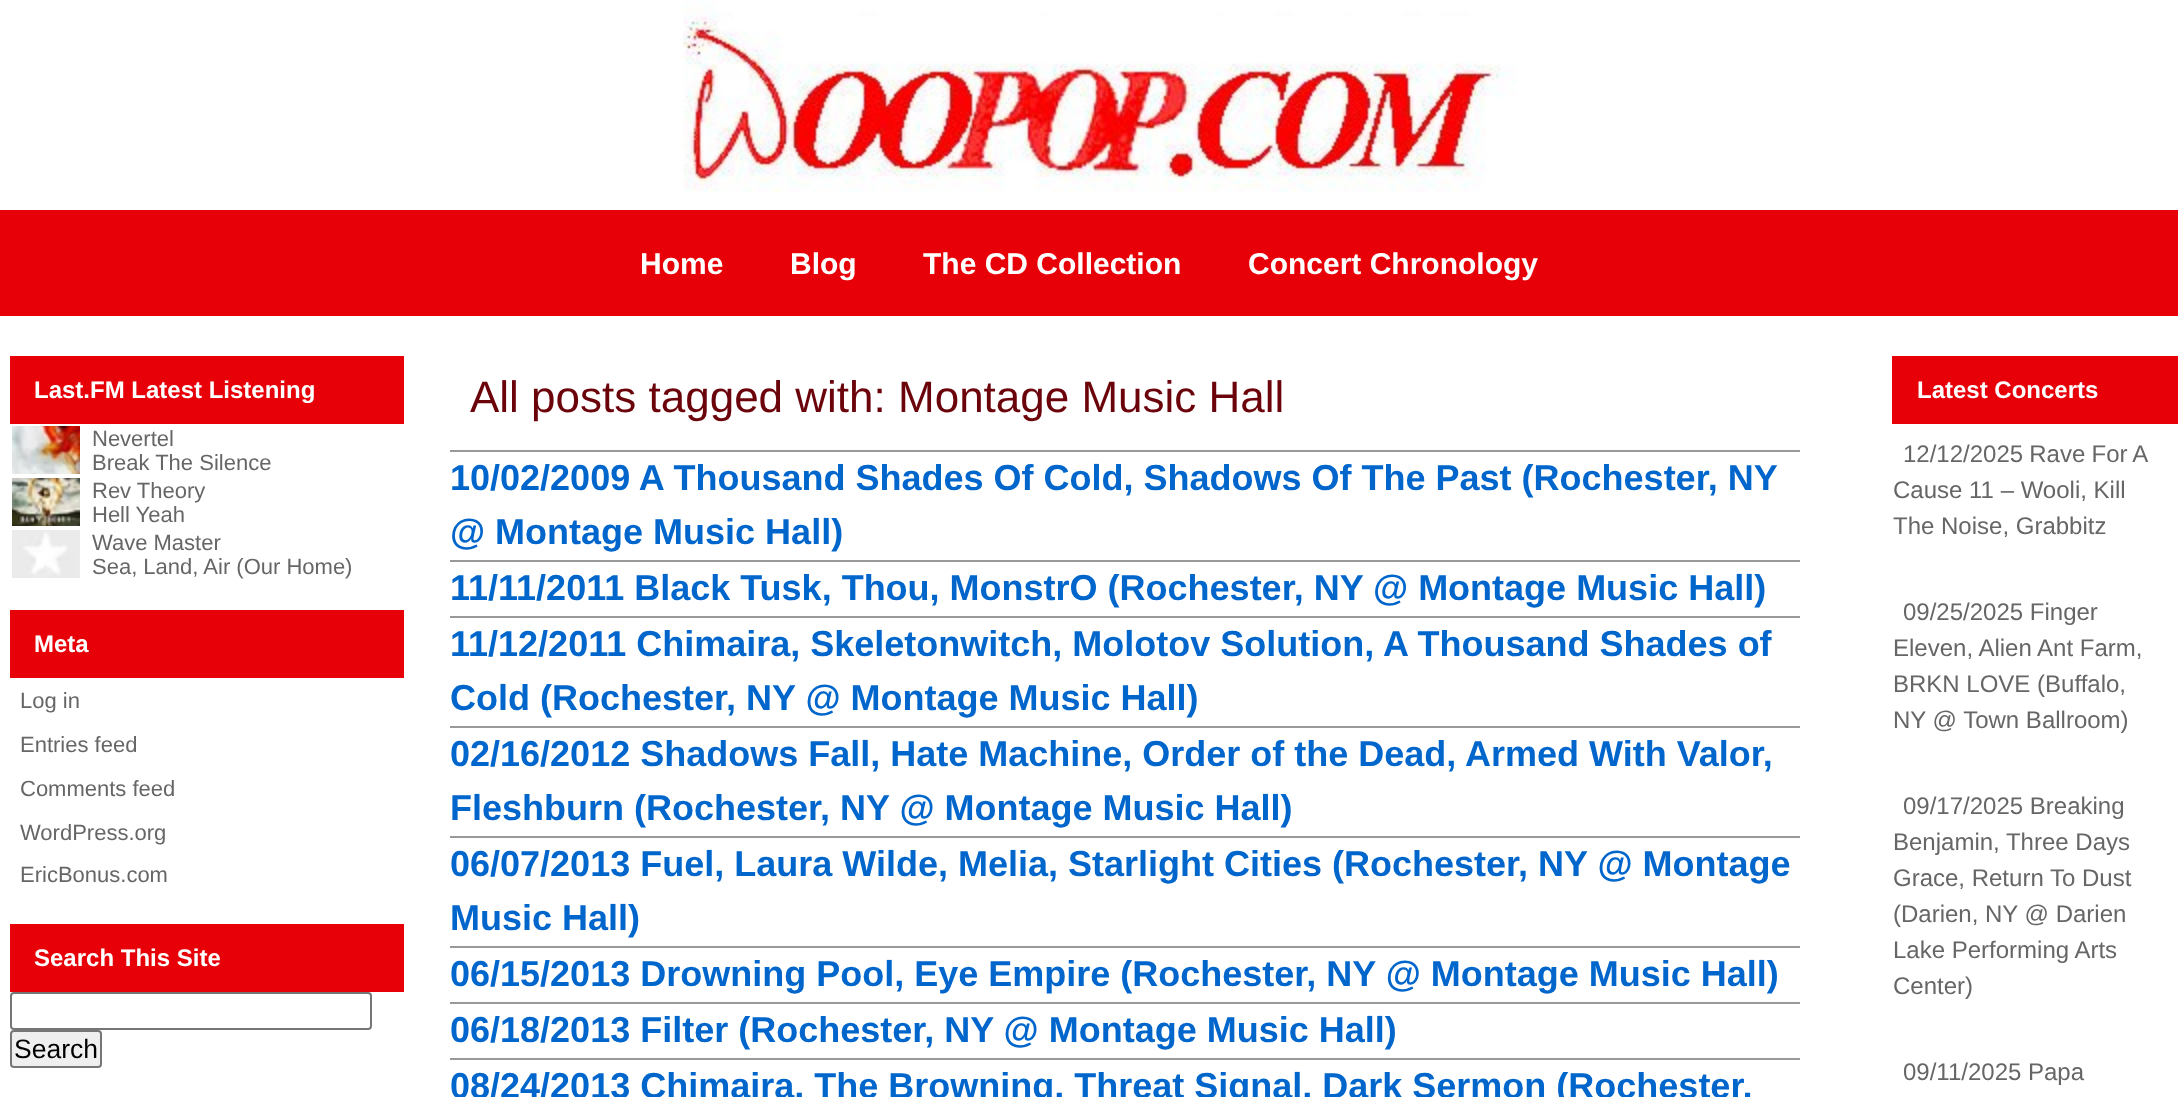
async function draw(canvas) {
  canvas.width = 2178
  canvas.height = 1097
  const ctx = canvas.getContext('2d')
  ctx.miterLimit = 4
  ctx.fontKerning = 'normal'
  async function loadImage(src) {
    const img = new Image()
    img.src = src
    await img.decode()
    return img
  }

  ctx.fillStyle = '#fff'
  ctx.fillRect(0, 0, 2178, 1097)
  ctx.drawImage(await loadImage('image0.png'), 682, 0, 835, 193)
  ctx.fillStyle = '#e70008'
  ctx.fillRect(0, 210, 2178, 106)
  ctx.font = 'bold 30px Liberation Sans'
  ctx.fillStyle = '#fff'
  ctx.fillText('Home', 640, 274)
  ctx.fillText('Blog', 790, 274)
  ctx.fillText('The CD Collection', 923, 274)
  ctx.fillText('Concert Chronology', 1248, 274)
  ctx.fillStyle = '#e70008'
  ctx.fillRect(10, 356, 394, 68)
  ctx.font = 'bold 24px Liberation Sans'
  ctx.fillStyle = '#fff'
  ctx.fillText('Last.FM Latest Listening', 34, 398)
  ctx.drawImage(await loadImage('image1.png'), 12, 426, 68, 48)
  ctx.font = '22px Liberation Sans'
  ctx.fillStyle = '#666'
  ctx.fillText('Nevertel', 92, 446)
  ctx.fillText('Break The Silence', 92, 470)
  ctx.drawImage(await loadImage('image2.png'), 12, 478, 68, 48)
  ctx.fillText('Rev Theory', 92, 498)
  ctx.fillText('Hell Yeah', 92, 522)
  ctx.drawImage(await loadImage('image3.png'), 12, 530, 68, 48)
  ctx.fillText('Wave Master', 92, 550)
  ctx.fillText('Sea, Land, Air (Our Home)', 92, 574)
  ctx.fillStyle = '#e70008'
  ctx.fillRect(10, 610, 394, 68)
  ctx.font = 'bold 24px Liberation Sans'
  ctx.fillStyle = '#fff'
  ctx.fillText('Meta', 34, 652)
  ctx.font = '22px Liberation Sans'
  ctx.fillStyle = '#666'
  ctx.fillText('Log in', 20, 708)
  ctx.fillText('Entries feed', 20, 752)
  ctx.fillText('Comments feed', 20, 796)
  ctx.fillText('WordPress.org', 20, 840)
  ctx.fillText('EricBonus.com', 20, 882)
  ctx.fillStyle = '#e70008'
  ctx.fillRect(10, 924, 394, 68)
  ctx.font = 'bold 24px Liberation Sans'
  ctx.fillStyle = '#fff'
  ctx.fillText('Search This Site', 34, 966)
  ctx.beginPath()
  ctx.roundRect(11, 993, 360, 36, 3)
  ctx.strokeStyle = '#767676'
  ctx.lineWidth = 2
  ctx.stroke()
  ctx.fillStyle = '#efefef'
  ctx.beginPath()
  ctx.roundRect(11, 1031, 90, 36, 3)
  ctx.fill()
  ctx.stroke()
  ctx.font = '26.5px Liberation Sans'
  ctx.fillStyle = '#000'
  ctx.fillText('Search', 14, 1058)
  ctx.font = '44px Liberation Sans'
  ctx.fillStyle = '#6b030b'
  ctx.fillText('All posts tagged with: Montage Music Hall', 470, 412)
  ctx.fillStyle = '#999'
  ctx.fillRect(450, 450, 1350, 2)
  ctx.font = 'bold 36px Liberation Sans'
  ctx.fillStyle = '#06c'
  ctx.fillText('10/02/2009 A Thousand Shades Of Cold, Shadows Of The Past (Rochester, NY', 450, 490)
  ctx.fillText('@ Montage Music Hall)', 450, 544)
  ctx.fillStyle = '#999'
  ctx.fillRect(450, 560, 1350, 2)
  ctx.fillStyle = '#06c'
  ctx.fillText('11/11/2011 Black Tusk, Thou, MonstrO (Rochester, NY @ Montage Music Hall)', 450, 600)
  ctx.fillStyle = '#999'
  ctx.fillRect(450, 616, 1350, 2)
  ctx.fillStyle = '#06c'
  ctx.fillText('11/12/2011 Chimaira, Skeletonwitch, Molotov Solution, A Thousand Shades of', 450, 656)
  ctx.fillText('Cold (Rochester, NY @ Montage Music Hall)', 450, 710)
  ctx.fillStyle = '#999'
  ctx.fillRect(450, 726, 1350, 2)
  ctx.fillStyle = '#06c'
  ctx.fillText('02/16/2012 Shadows Fall, Hate Machine, Order of the Dead, Armed With Valor,', 450, 766)
  ctx.fillText('Fleshburn (Rochester, NY @ Montage Music Hall)', 450, 820)
  ctx.fillStyle = '#999'
  ctx.fillRect(450, 836, 1350, 2)
  ctx.fillStyle = '#06c'
  ctx.fillText('06/07/2013 Fuel, Laura Wilde, Melia, Starlight Cities (Rochester, NY @ Montage', 450, 876)
  ctx.fillText('Music Hall)', 450, 930)
  ctx.fillStyle = '#999'
  ctx.fillRect(450, 946, 1350, 2)
  ctx.fillStyle = '#06c'
  ctx.fillText('06/15/2013 Drowning Pool, Eye Empire (Rochester, NY @ Montage Music Hall)', 450, 986)
  ctx.fillStyle = '#999'
  ctx.fillRect(450, 1002, 1350, 2)
  ctx.fillStyle = '#06c'
  ctx.fillText('06/18/2013 Filter (Rochester, NY @ Montage Music Hall)', 450, 1042)
  ctx.fillStyle = '#999'
  ctx.fillRect(450, 1058, 1350, 2)
  ctx.fillStyle = '#06c'
  ctx.fillText('08/24/2013 Chimaira, The Browning, Threat Signal, Dark Sermon (Rochester,', 450, 1098)
  ctx.fillStyle = '#e70008'
  ctx.fillRect(1892, 356, 286, 68)
  ctx.font = 'bold 24px Liberation Sans'
  ctx.fillStyle = '#fff'
  ctx.fillText('Latest Concerts', 1917, 398)
  ctx.wordSpacing = '-0.5px'
  ctx.font = '24px Liberation Sans'
  ctx.fillStyle = '#666'
  ctx.fillText('12/12/2025 Rave For A', 1903, 462)
  ctx.wordSpacing = '0px'
  ctx.fillText('Cause 11 – Wooli, Kill', 1893, 498)
  ctx.fillText('The Noise, Grabbitz', 1893, 534)
  ctx.fillText('09/25/2025 Finger', 1903, 620)
  ctx.fillText('Eleven, Alien Ant Farm,', 1893, 656)
  ctx.fillText('BRKN LOVE (Buffalo,', 1893, 692)
  ctx.fillText('NY @ Town Ballroom)', 1893, 728)
  ctx.fillText('09/17/2025 Breaking', 1903, 814)
  ctx.fillText('Benjamin, Three Days', 1893, 850)
  ctx.fillText('Grace, Return To Dust', 1893, 886)
  ctx.fillText('(Darien, NY @ Darien', 1893, 922)
  ctx.fillText('Lake Performing Arts', 1893, 958)
  ctx.fillText('Center)', 1893, 994)
  ctx.fillText('09/11/2025 Papa', 1903, 1080)
}

draw(document.querySelector('canvas'))
